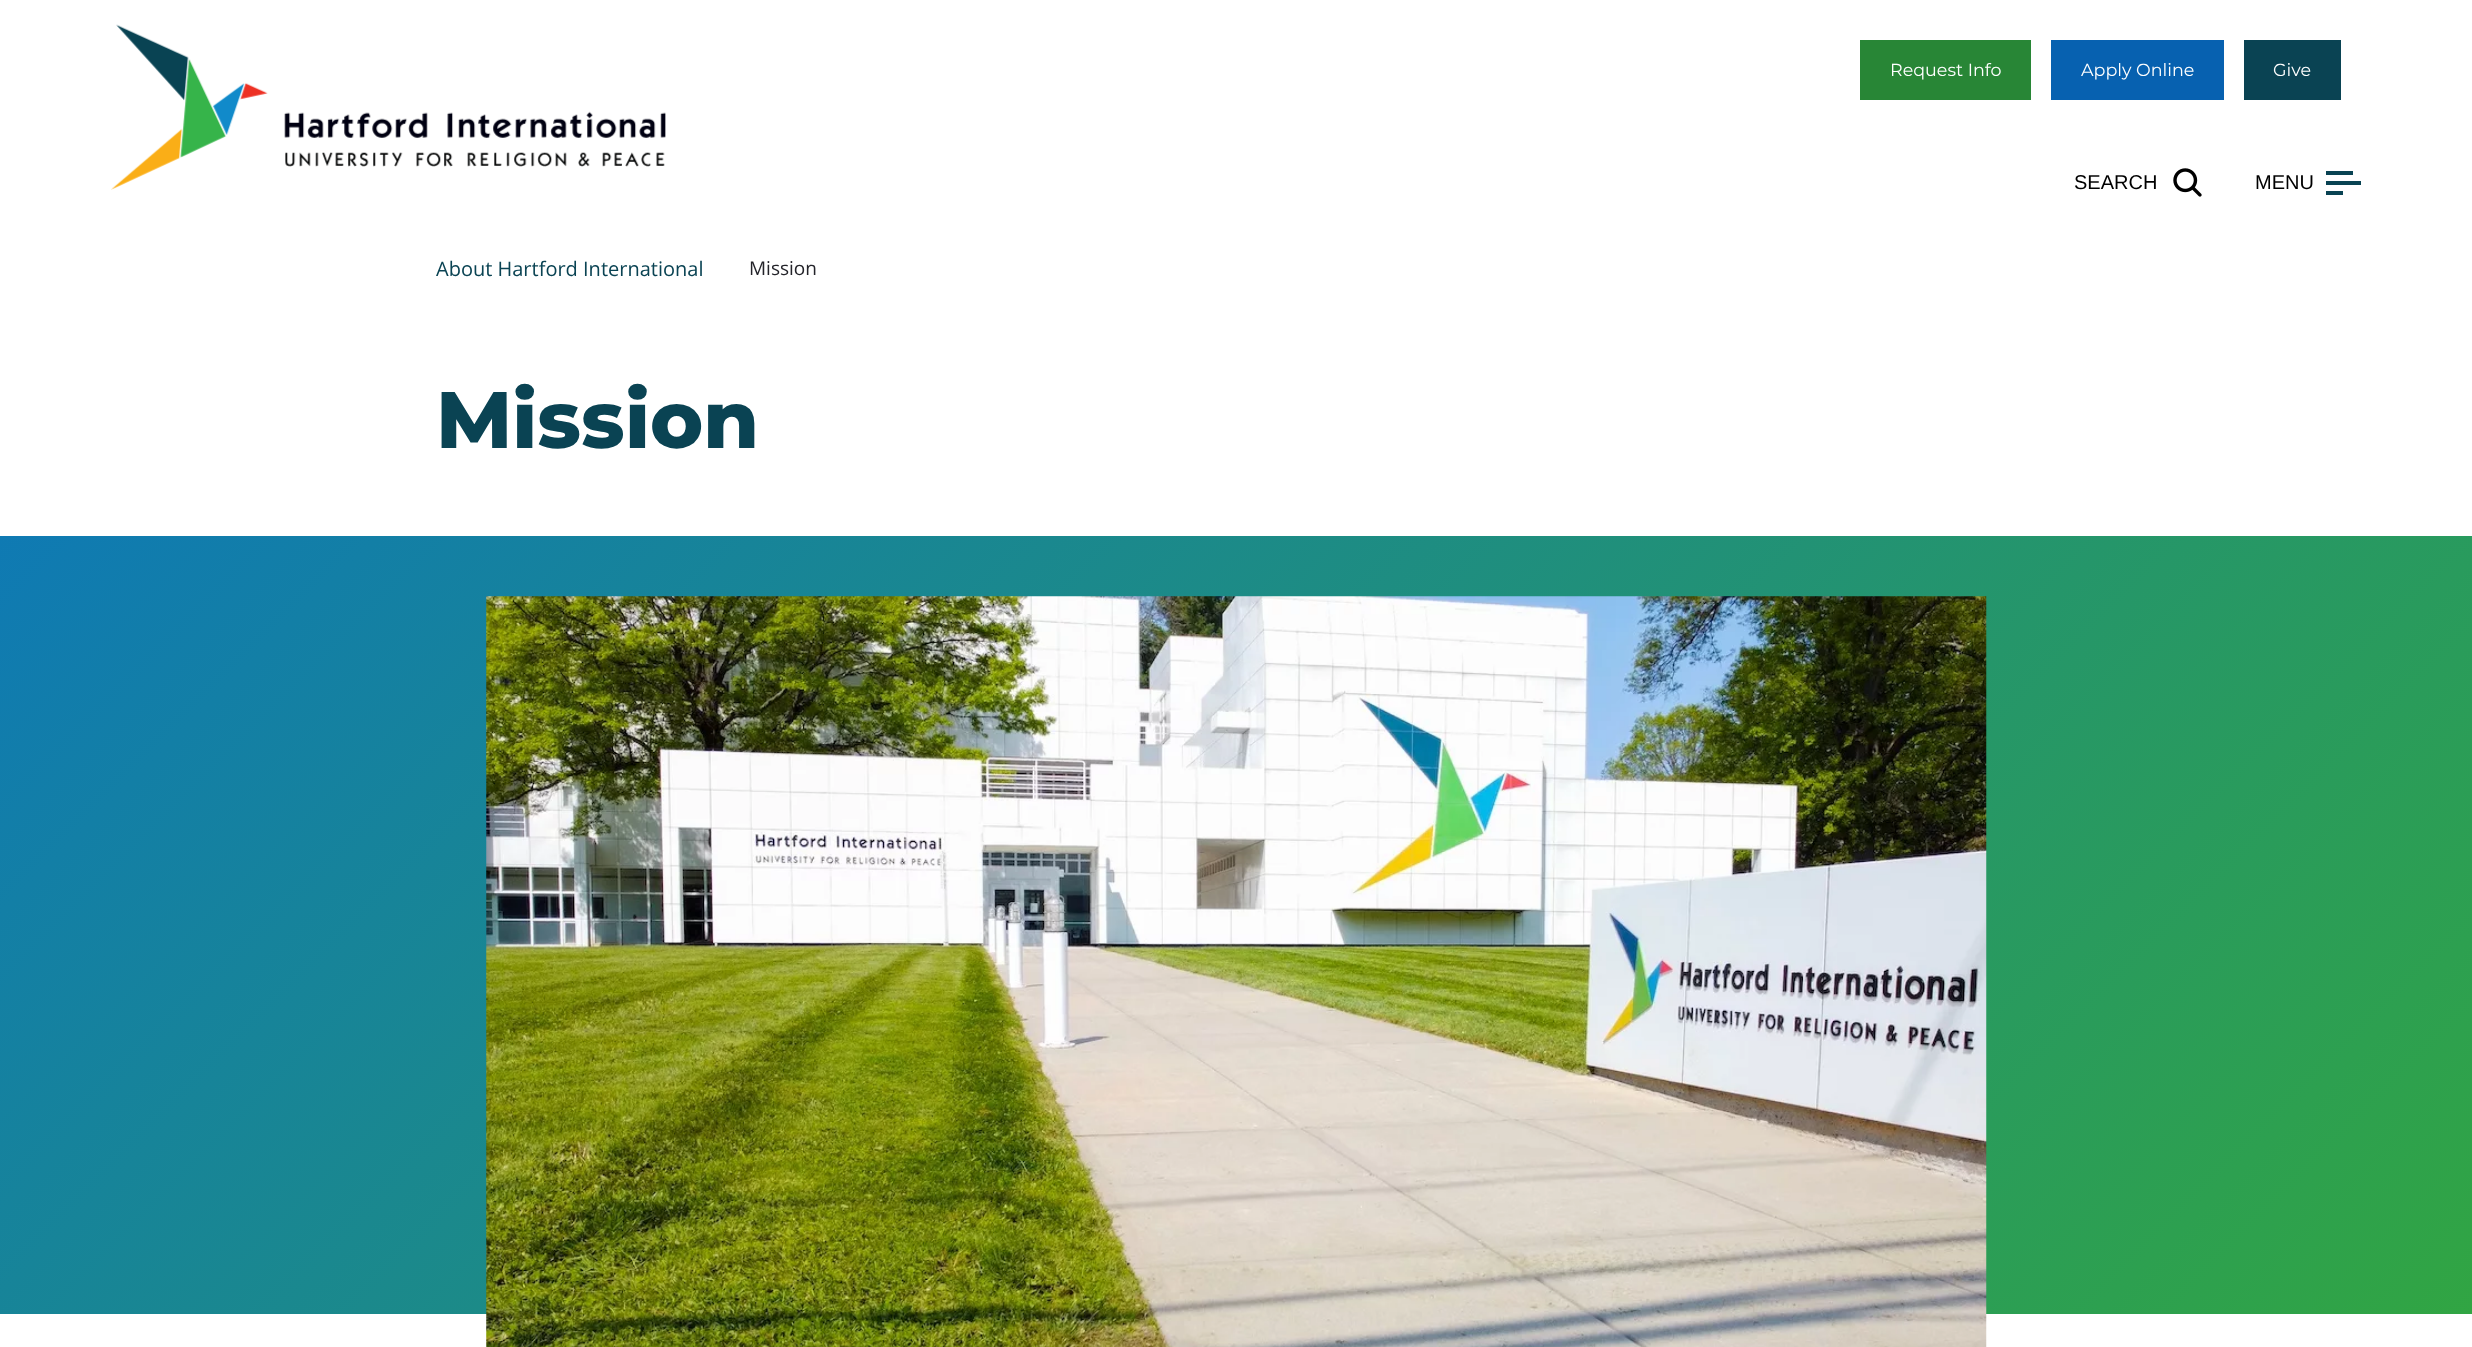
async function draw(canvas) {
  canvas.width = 2472
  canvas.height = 1347
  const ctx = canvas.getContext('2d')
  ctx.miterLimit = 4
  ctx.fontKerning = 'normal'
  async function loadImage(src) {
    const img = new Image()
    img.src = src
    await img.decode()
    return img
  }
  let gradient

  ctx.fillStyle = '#fff'
  ctx.fillRect(0, 0, 2472, 1347)
  ctx.drawImage(await loadImage('image0.png'), 111, 24, 555, 166)
  ctx.fillStyle = '#288636'
  ctx.fillRect(1860, 40, 171, 60)
  ctx.font = '17.5px Montserrat'
  ctx.fillStyle = '#fff'
  ctx.fillText('Request Info', 1890, 76)
  ctx.fillStyle = '#0761b0'
  ctx.fillRect(2051, 40, 173, 60)
  ctx.fillStyle = '#fff'
  ctx.fillText('Apply Online', 2081, 76)
  ctx.fillStyle = '#0a4353'
  ctx.fillRect(2244, 40, 97, 60)
  ctx.fillStyle = '#fff'
  ctx.fillText('Give', 2273, 76)
  ctx.font = '20px Liberation Sans'
  ctx.fillStyle = '#000'
  ctx.fillText('SEARCH', 2074, 189)
  ctx.drawImage(await loadImage('image1.png'), 2173, 168, 29, 29)
  ctx.fillText('MENU', 2255, 189)
  ctx.fillStyle = '#094353'
  ctx.fillRect(2326, 171, 27, 4)
  ctx.fillRect(2326, 181, 35, 4)
  ctx.fillRect(2326, 191, 17, 4)
  ctx.font = '20px Open Sans'
  ctx.fillStyle = '#0a4353'
  ctx.fillText('About Hartford International', 436, 276)
  ctx.font = '19px Open Sans'
  ctx.fillStyle = '#232329'
  ctx.fillText('Mission', 749, 275)
  ctx.font = '800 80px Montserrat'
  ctx.fillStyle = '#0a4353'
  ctx.fillText('Mission', 436, 448)
  gradient = ctx.createLinearGradient(424, 112, 2049, 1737)
  gradient.addColorStop(0, '#0f7ab3')
  gradient.addColorStop(1, '#31a543')
  ctx.fillStyle = gradient
  ctx.fillRect(0, 536, 2472, 778)
  ctx.drawImage(await loadImage('image2.png'), 486, 596, 1501, 751)
}

draw(document.querySelector('canvas'))
